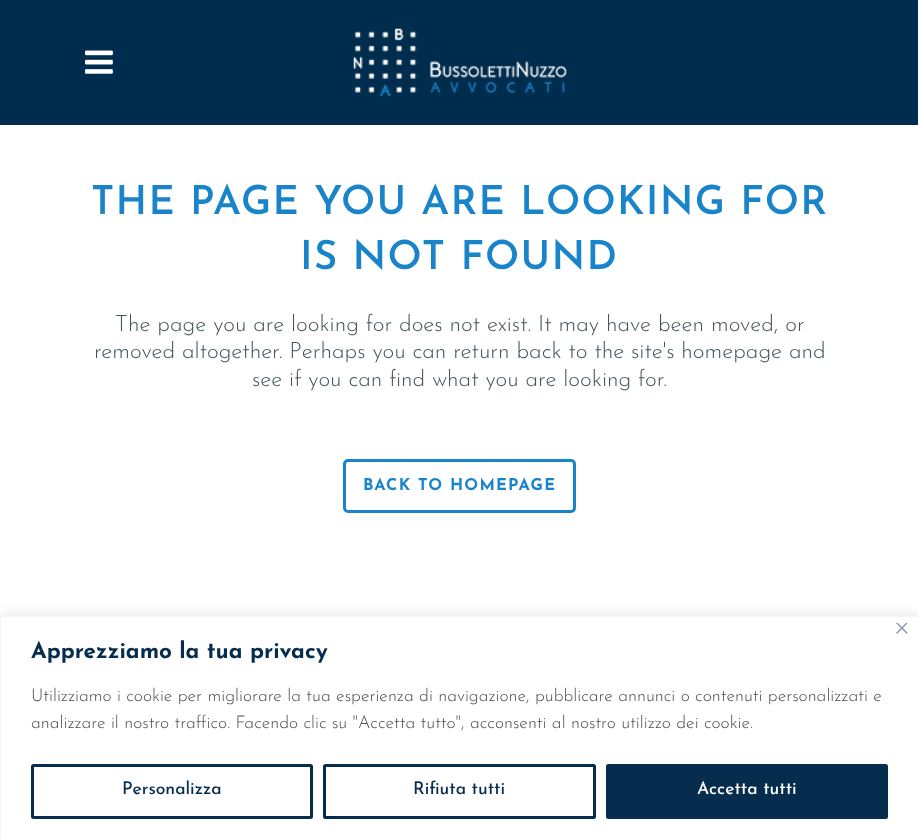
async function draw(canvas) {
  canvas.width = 918
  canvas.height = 839
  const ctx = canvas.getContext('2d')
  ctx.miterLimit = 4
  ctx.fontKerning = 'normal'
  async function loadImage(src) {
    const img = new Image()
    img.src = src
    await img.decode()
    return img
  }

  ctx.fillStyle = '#fff'
  ctx.fillRect(0, 0, 918, 839)
  ctx.fillStyle = '#002d4d'
  ctx.fillRect(0, 0, 918, 125)
  ctx.drawImage(await loadImage('image0.png'), 85, 50, 28, 24)
  ctx.drawImage(await loadImage('image1.png'), 353, 28, 214, 69)
  ctx.letterSpacing = '1.25px'
  ctx.font = '600 40px Josefin Sans'
  ctx.fillStyle = '#1984c9'
  ctx.fillText('THE PAGE YOU ARE LOOKING FOR', 91, 214)
  ctx.fillText('IS NOT FOUND', 300, 269)
  ctx.letterSpacing = '0px'
  ctx.font = '300 22.5px Josefin Sans'
  ctx.fillStyle = '#43545b'
  ctx.fillText('The page you are looking for does not exist. It may have been moved, or', 115, 331)
  ctx.fillText('removed altogether. Perhaps you can return back to the site\'s homepage and', 94, 358)
  ctx.fillText('see if you can find what you are looking for.', 252, 386)
  ctx.beginPath()
  ctx.roundRect(344.5, 460.5, 230, 51, 3.5)
  ctx.strokeStyle = '#1984c9'
  ctx.lineWidth = 3
  ctx.stroke()
  ctx.letterSpacing = '1.25px'
  ctx.font = 'bold 16.25px Josefin Sans'
  ctx.fillStyle = '#1984c9'
  ctx.fillText('BACK TO HOMEPAGE', 363, 490)
  ctx.fillStyle = '#acabab4d'
  ctx.filter = 'blur(6px)'
  ctx.beginPath()
  ctx.rect(0, 615, 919, 224)
  ctx.fill()
  ctx.filter = 'none'
  ctx.fillStyle = '#fff'
  ctx.beginPath()
  ctx.rect(0.5, 616.5, 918, 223)
  ctx.fill()
  ctx.strokeStyle = '#f4f4f4'
  ctx.lineWidth = 1
  ctx.stroke()
  ctx.drawImage(await loadImage('image2.png'), 896, 623, 12, 11)
  ctx.letterSpacing = '0px'
  ctx.font = 'bold 22.5px Josefin Sans'
  ctx.fillStyle = '#072d4e'
  ctx.fillText('Apprezziamo la tua privacy', 31, 658)
  ctx.font = '300 17.5px Josefin Sans'
  ctx.fillStyle = '#4e4e4e'
  ctx.fillText('Utilizziamo i cookie per migliorare la tua esperienza di navigazione, pubblicare annunci o contenuti personalizzati e', 31, 701)
  ctx.fillText('analizzare il nostro traffico. Facendo clic su "Accetta tutto", acconsenti al nostro utilizzo dei cookie.', 31, 728)
  ctx.beginPath()
  ctx.roundRect(32.5, 765.5, 279, 52, 1)
  ctx.strokeStyle = '#072d4e'
  ctx.lineWidth = 3
  ctx.stroke()
  ctx.font = '500 17.5px Josefin Sans'
  ctx.fillStyle = '#072d4e'
  ctx.fillText('Personalizza', 122, 794)
  ctx.beginPath()
  ctx.roundRect(324.5, 765.5, 270, 52, 1)
  ctx.stroke()
  ctx.fillText('Rifiuta tutti', 413, 794)
  ctx.beginPath()
  ctx.roundRect(607.5, 765.5, 279, 52, 1)
  ctx.fill()
  ctx.stroke()
  ctx.fillStyle = '#fff'
  ctx.fillText('Accetta tutti', 697, 794)
}

draw(document.querySelector('canvas'))
